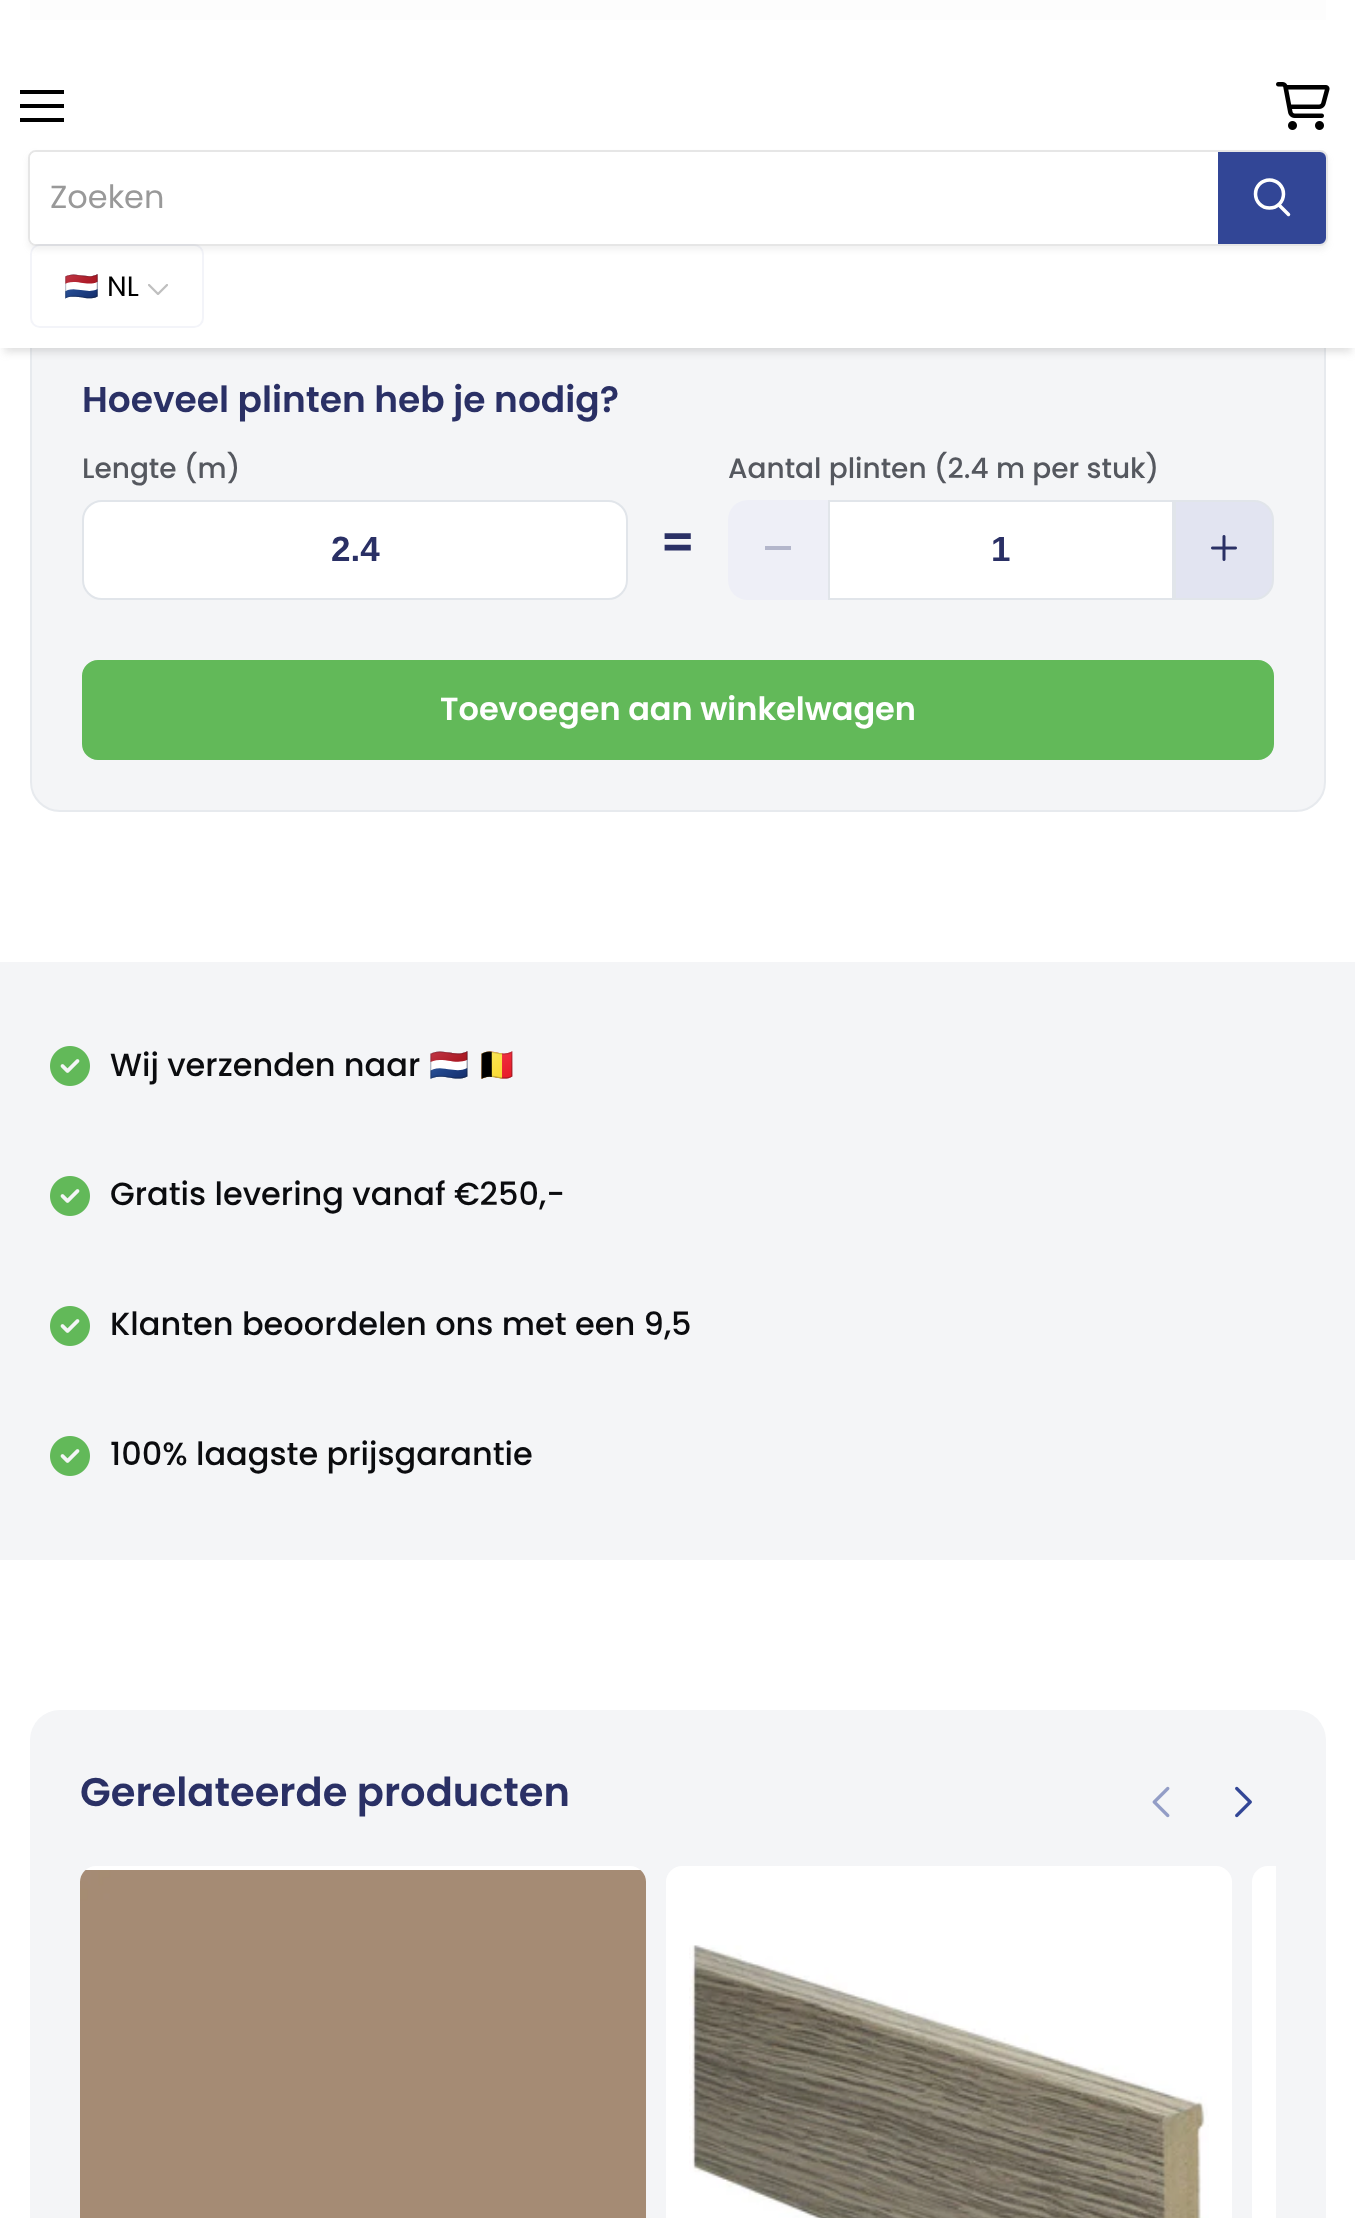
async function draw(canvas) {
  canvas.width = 1355
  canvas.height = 2218
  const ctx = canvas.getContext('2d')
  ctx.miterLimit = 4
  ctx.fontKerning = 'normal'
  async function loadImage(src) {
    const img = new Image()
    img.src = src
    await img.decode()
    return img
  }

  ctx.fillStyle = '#fff'
  ctx.fillRect(0, 0, 1355, 2218)
  ctx.fillStyle = '#f4f5f7'
  ctx.beginPath()
  ctx.roundRect(31, -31, 1294, 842, 29)
  ctx.fill()
  ctx.strokeStyle = '#e7eaee'
  ctx.lineWidth = 2
  ctx.stroke()
  ctx.fillStyle = '#fdfdfd'
  ctx.fillRect(30, 0, 1296, 20)
  ctx.fillStyle = '#80808040'
  ctx.filter = 'blur(4px)'
  ctx.beginPath()
  ctx.rect(4, 32, 1348, 320)
  ctx.fill()
  ctx.filter = 'none'
  ctx.fillStyle = '#fff'
  ctx.fillRect(0, 20, 1355, 328)
  ctx.fillStyle = '#000'
  ctx.fillRect(20, 90, 44, 4)
  ctx.fillRect(20, 104, 44, 4)
  ctx.fillRect(20, 118, 44, 4)
  ctx.beginPath()
  ctx.roundRect(31, 245, 172, 82, 9)
  ctx.strokeStyle = '#f3f4f9'
  ctx.stroke()
  ctx.save()
  ctx.beginPath()
  ctx.moveTo(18, 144)
  ctx.lineTo(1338, 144)
  ctx.lineTo(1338, 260)
  ctx.lineTo(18, 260)
  ctx.closePath()
  ctx.moveTo(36, 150)
  ctx.lineTo(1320, 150)
  ctx.bezierCurveTo(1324.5, 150, 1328, 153.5, 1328, 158)
  ctx.lineTo(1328, 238)
  ctx.bezierCurveTo(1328, 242.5, 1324.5, 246, 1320, 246)
  ctx.lineTo(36, 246)
  ctx.bezierCurveTo(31.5, 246, 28, 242.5, 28, 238)
  ctx.lineTo(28, 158)
  ctx.bezierCurveTo(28, 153.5, 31.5, 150, 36, 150)
  ctx.closePath()
  ctx.clip('evenodd')
  ctx.fillStyle = '#8080801c'
  ctx.filter = 'blur(3px)'
  ctx.beginPath()
  ctx.roundRect(28, 154, 1300, 96, 8)
  ctx.fill()
  ctx.filter = 'none'
  ctx.restore()
  ctx.beginPath()
  ctx.roundRect(29, 151, 1298, 94, 7)
  ctx.strokeStyle = '#80808033'
  ctx.stroke()
  ctx.fillStyle = '#fff'
  ctx.beginPath()
  ctx.roundRect(30, 152, 1188, 92, [6, 0, 0, 6])
  ctx.fill()
  ctx.font = '32px Poppins'
  ctx.fillStyle = '#999'
  ctx.fillText('Zoeken', 50, 208)
  ctx.fillStyle = '#324696'
  ctx.beginPath()
  ctx.roundRect(1219, 153, 106, 90, [0, 5, 5, 0])
  ctx.fill()
  ctx.strokeStyle = '#324696'
  ctx.stroke()
  ctx.beginPath()
  ctx.moveTo(1288.5, 214.5)
  ctx.lineTo(1279, 205)
  ctx.strokeStyle = '#fff'
  ctx.lineWidth = 3.5
  ctx.lineCap = 'round'
  ctx.stroke()
  ctx.beginPath()
  ctx.arc(1269.5, 194, 14, 0, 2 * Math.PI)
  ctx.stroke()
  ctx.drawImage(await loadImage('image0.png'), 1276, 82, 54, 48)
  ctx.font = '28px Noto Color Emoji'
  ctx.fillStyle = '#000'
  ctx.fillText('🇳🇱', 64, 296)
  ctx.font = '28px Poppins'
  ctx.fillText('NL', 107, 296)
  ctx.drawImage(await loadImage('image1.png'), 148, 284, 20, 11)
  ctx.font = '600 36px Poppins'
  ctx.fillStyle = '#2a3065'
  ctx.fillText('Hoeveel plinten heb je nodig?', 82, 412)
  ctx.font = '500 28px Poppins'
  ctx.fillStyle = '#55585f'
  ctx.fillText('Lengte (m)', 82, 478)
  ctx.fillStyle = '#fff'
  ctx.beginPath()
  ctx.roundRect(83, 501, 544, 98, 19)
  ctx.fill()
  ctx.strokeStyle = '#e1e5ea'
  ctx.lineWidth = 2
  ctx.stroke()
  ctx.font = 'bold 35px Liberation Sans'
  ctx.fillStyle = '#2a3065'
  ctx.fillText('2.4', 331, 561)
  ctx.font = '600 48px Poppins'
  ctx.fillText('=', 660, 559)
  ctx.font = '500 28px Poppins'
  ctx.fillStyle = '#55585f'
  ctx.fillText('Aantal plinten (2.4 m per stuk)', 728, 478)
  ctx.fillStyle = '#eeeff7'
  ctx.beginPath()
  ctx.roundRect(728, 500, 100, 100, [20, 0, 0, 20])
  ctx.fill()
  ctx.fillStyle = '#b3b6cb'
  ctx.fillRect(765, 546, 26, 4)
  ctx.fillStyle = '#fff'
  ctx.beginPath()
  ctx.rect(829, 501, 344, 98)
  ctx.fill()
  ctx.stroke()
  ctx.font = 'bold 35px Liberation Sans'
  ctx.fillStyle = '#2a3065'
  ctx.fillText('1', 991, 561)
  ctx.fillStyle = '#e2e4f1'
  ctx.beginPath()
  ctx.roundRect(1175, 501, 98, 98, [0, 19, 19, 0])
  ctx.fill()
  ctx.stroke()
  ctx.drawImage(await loadImage('image2.png'), 1211, 535, 26, 26)
  ctx.fillStyle = '#62b959'
  ctx.beginPath()
  ctx.roundRect(83, 661, 1190, 98, 15)
  ctx.fill()
  ctx.strokeStyle = '#62b959'
  ctx.stroke()
  ctx.font = '600 32px Poppins'
  ctx.fillStyle = '#fff'
  ctx.fillText('Toevoegen aan winkelwagen', 440, 720)
  ctx.fillStyle = '#f4f5f7'
  ctx.fillRect(0, 962, 1355, 598)
  ctx.drawImage(await loadImage('image3.png'), 50, 1046, 40, 40)
  ctx.font = '500 32px Poppins'
  ctx.fillStyle = '#0b0c0f'
  ctx.fillText('Wij verzenden naar', 110, 1076)
  ctx.font = '32px Noto Color Emoji'
  ctx.fillText('🇳🇱', 429, 1076)
  ctx.fillText('🇧🇪', 477, 1076)
  ctx.drawImage(await loadImage('image3.png'), 50, 1176, 40, 40)
  ctx.font = '500 32px Poppins'
  ctx.fillText('Gratis levering vanaf €250,-', 110, 1205)
  ctx.drawImage(await loadImage('image3.png'), 50, 1306, 40, 40)
  ctx.fillText('Klanten beoordelen ons met een 9,5', 110, 1335)
  ctx.drawImage(await loadImage('image3.png'), 50, 1436, 40, 40)
  ctx.fillText('100% laagste prijsgarantie', 110, 1465)
  ctx.fillStyle = '#f4f5f7'
  ctx.beginPath()
  ctx.roundRect(30, 1710, 1296, 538, 30)
  ctx.fill()
  ctx.font = '600 40px Poppins'
  ctx.fillStyle = '#2a3065'
  ctx.fillText('Gerelateerde producten', 80, 1806)
  ctx.drawImage(await loadImage('image4.png'), 1152, 1786, 18, 32)
  ctx.drawImage(await loadImage('image5.png'), 1235, 1786, 17, 32)
  ctx.fillStyle = '#fff'
  ctx.beginPath()
  ctx.roundRect(80, 1866, 566, 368, 16)
  ctx.fill()
  ctx.drawImage(await loadImage('image6.png'), 80, 1870, 566, 348)
  ctx.beginPath()
  ctx.roundRect(666, 1866, 566, 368, 16)
  ctx.fill()
  ctx.drawImage(await loadImage('image7.png'), 689, 1945, 520, 273)
  ctx.beginPath()
  ctx.moveTo(1268, 1866)
  ctx.lineTo(1276, 1866)
  ctx.lineTo(1276, 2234)
  ctx.lineTo(1268, 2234)
  ctx.bezierCurveTo(1259, 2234, 1252, 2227, 1252, 2218)
  ctx.lineTo(1252, 1882)
  ctx.bezierCurveTo(1252, 1873, 1259, 1866, 1268, 1866)
  ctx.closePath()
  ctx.fill()
}

draw(document.querySelector('canvas'))
